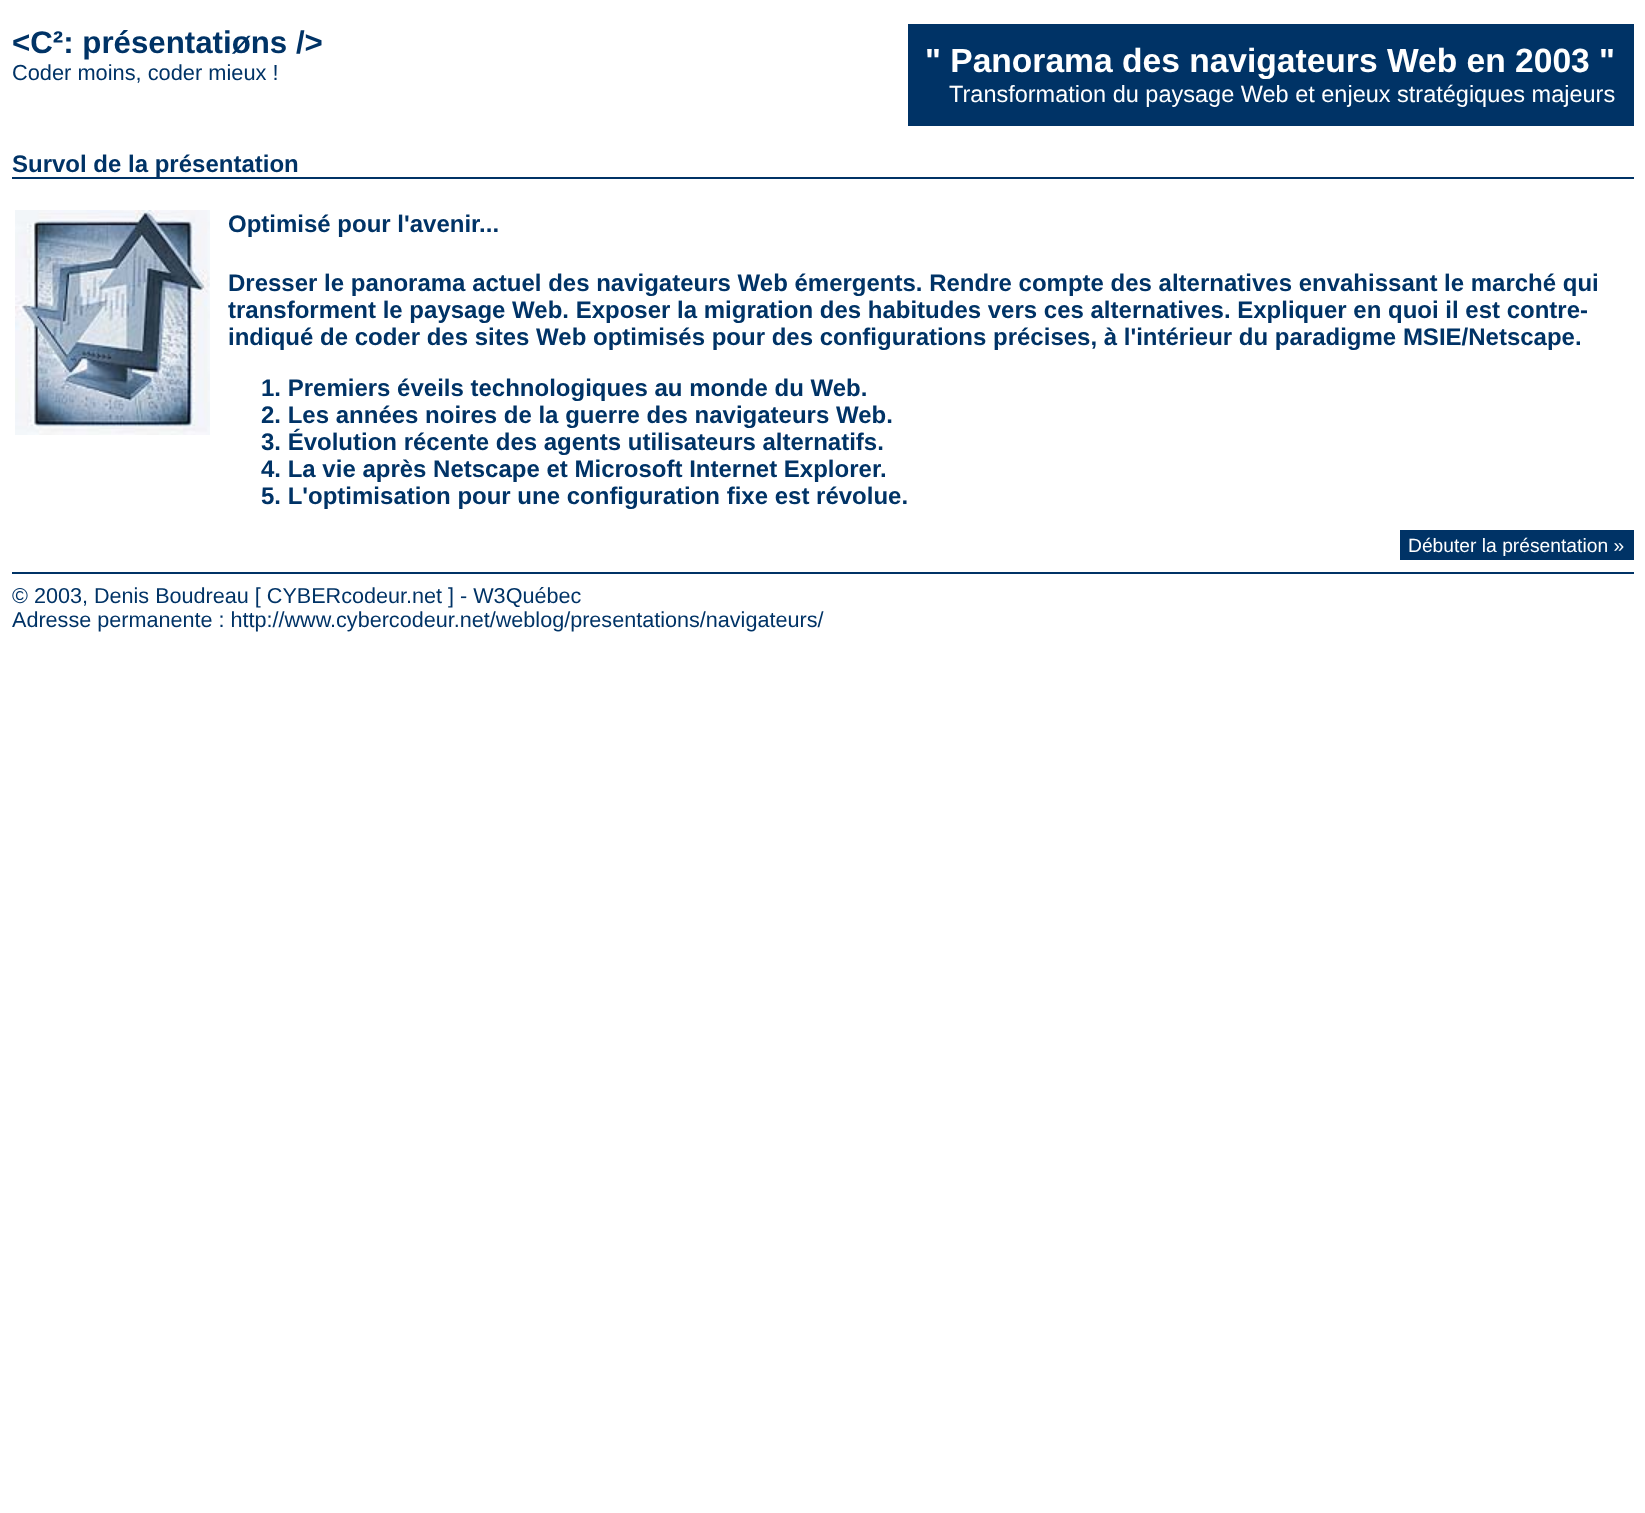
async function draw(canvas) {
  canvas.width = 1645
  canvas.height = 1513
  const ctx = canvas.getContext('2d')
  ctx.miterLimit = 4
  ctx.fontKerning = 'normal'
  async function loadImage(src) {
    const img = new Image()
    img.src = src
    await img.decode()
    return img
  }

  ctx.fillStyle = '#fff'
  ctx.fillRect(0, 0, 1645, 1513)
  ctx.drawImage(await loadImage('image0.png'), 15, 210, 195, 225)
  ctx.font = 'bold 31.25px Liberation Sans'
  ctx.fillStyle = '#036'
  ctx.fillText('<C²: présentatiøns />', 12, 53)
  ctx.font = '21.8px Liberation Sans'
  ctx.fillText('Coder moins, coder mieux !', 12, 80)
  ctx.fillRect(908, 24, 726, 102)
  ctx.font = 'bold 33.6px Liberation Sans'
  ctx.fillStyle = '#fff'
  ctx.fillText('" Panorama des navigateurs Web en 2003 "', 925, 72)
  ctx.font = '23.5px Liberation Sans'
  ctx.fillText('Transformation du paysage Web et enjeux stratégiques majeurs', 949, 102)
  ctx.fillStyle = '#036'
  ctx.fillRect(12, 177, 1622, 2)
  ctx.font = 'bold 24px Liberation Sans'
  ctx.fillText('Survol de la présentation', 12, 172)
  ctx.fillText('Optimisé pour l\'avenir...', 228, 232)
  ctx.fillText('Dresser le panorama actuel des navigateurs Web émergents. Rendre compte des alternatives envahissant le marché qui', 228, 291)
  ctx.fillText('transforment le paysage Web. Exposer la migration des habitudes vers ces alternatives. Expliquer en quoi il est contre-', 228, 318)
  ctx.fillText('indiqué de coder des sites Web optimisés pour des configurations précises, à l\'intérieur du paradigme MSIE/Netscape.', 228, 345)
  ctx.fillText('1. Premiers éveils technologiques au monde du Web.', 261, 396)
  ctx.fillText('2. Les années noires de la guerre des navigateurs Web.', 261, 423)
  ctx.fillText('3. Évolution récente des agents utilisateurs alternatifs.', 261, 450)
  ctx.fillText('4. La vie après Netscape et Microsoft Internet Explorer.', 261, 477)
  ctx.fillText('5. L\'optimisation pour une configuration fixe est révolue.', 261, 504)
  ctx.fillRect(1400, 530, 234, 30)
  ctx.font = '19.25px Liberation Sans'
  ctx.fillStyle = '#fff'
  ctx.fillText('Débuter la présentation »', 1408, 552)
  ctx.fillStyle = '#036'
  ctx.fillRect(12, 572, 1622, 2)
  ctx.font = '21.6px Liberation Sans'
  ctx.fillText('© 2003, Denis Boudreau [ CYBERcodeur.net ] - W3Québec', 12, 603)
  ctx.fillText('Adresse permanente : http://www.cybercodeur.net/weblog/presentations/navigateurs/', 12, 627)
}

draw(document.querySelector('canvas'))
